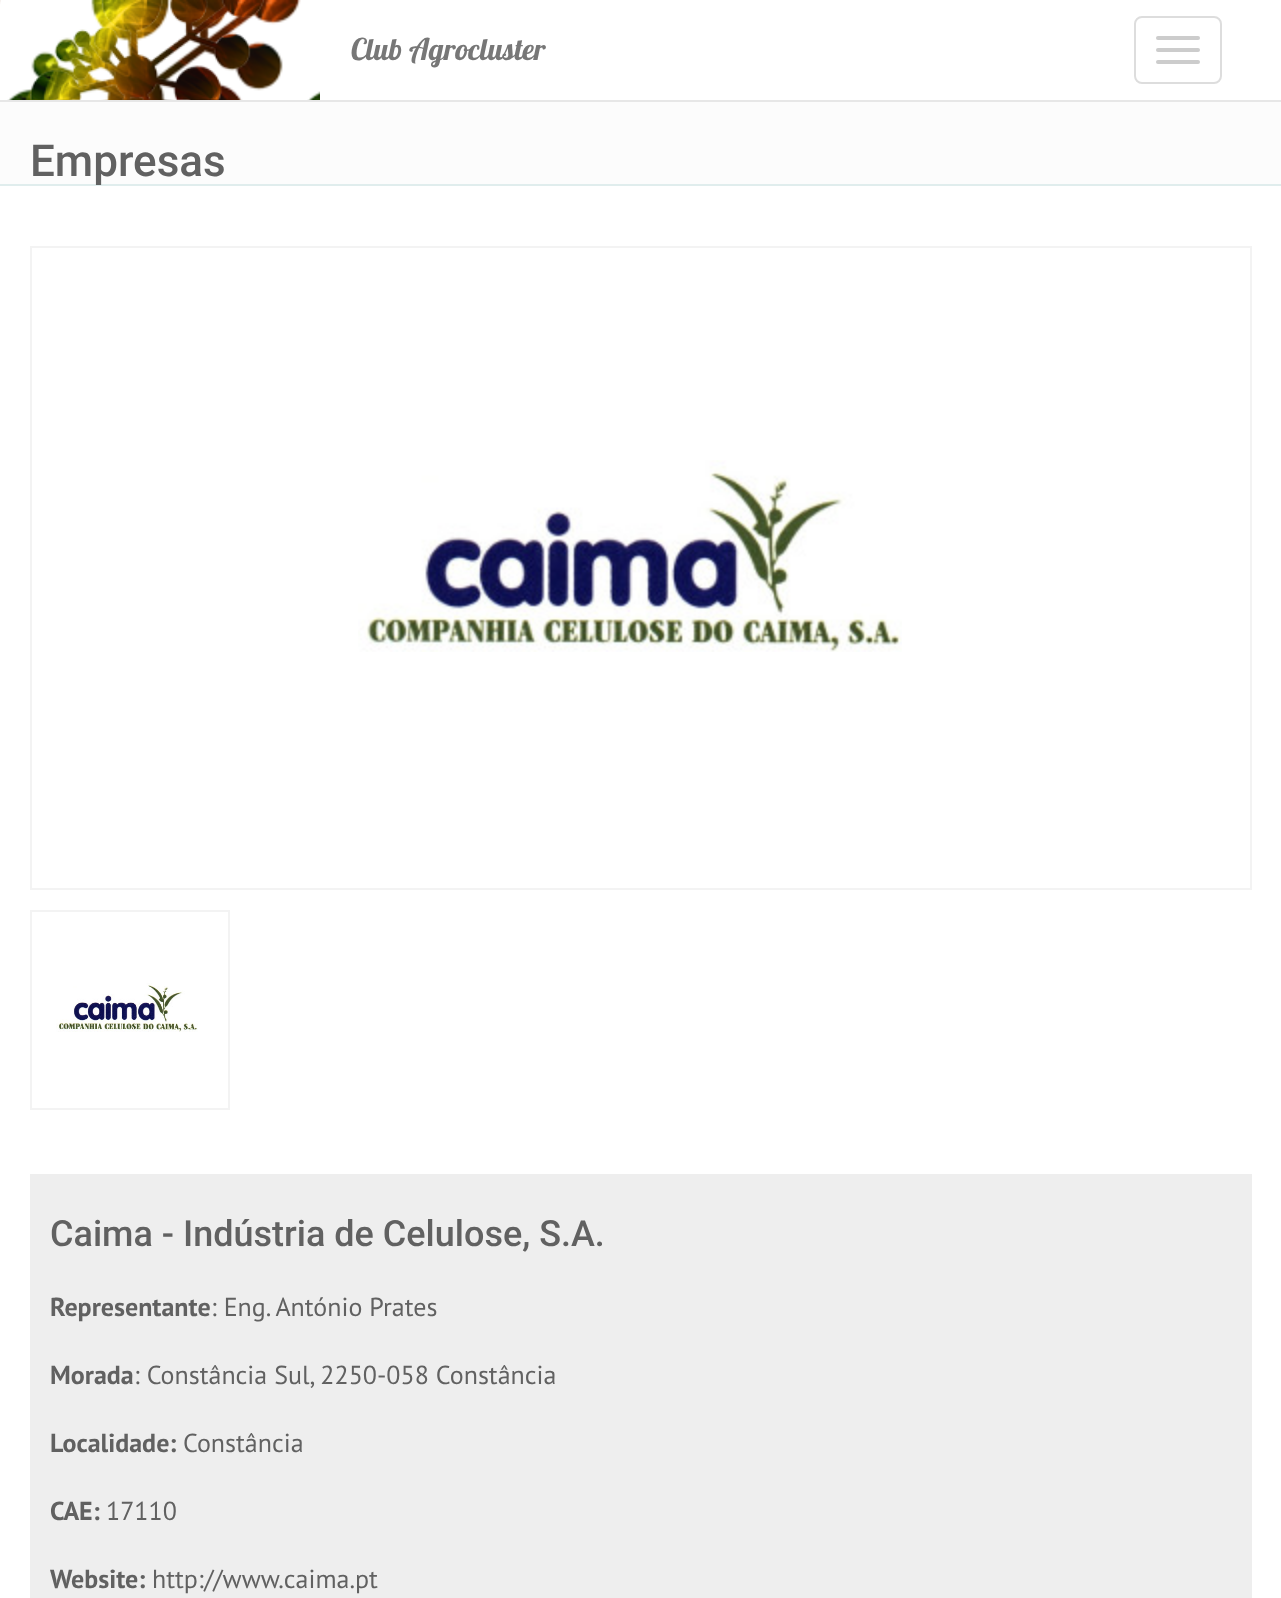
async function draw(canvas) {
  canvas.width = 1281
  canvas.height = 1598
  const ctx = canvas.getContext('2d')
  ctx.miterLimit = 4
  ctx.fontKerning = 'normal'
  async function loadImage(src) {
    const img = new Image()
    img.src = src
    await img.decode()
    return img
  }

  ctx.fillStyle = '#fff'
  ctx.fillRect(0, 0, 1281, 1598)
  ctx.fillStyle = '#e7e7e7'
  ctx.fillRect(0, 100, 1281, 2)
  ctx.drawImage(await loadImage('image0.png'), 0, 0, 320, 100)
  ctx.drawImage(await loadImage('image1.png'), 30, 0, 235, 100)
  ctx.font = '30px Lobster'
  ctx.fillStyle = '#777'
  ctx.fillText('Club Agrocluster', 351, 60)
  ctx.beginPath()
  ctx.roundRect(1135, 17, 86, 66, 7)
  ctx.strokeStyle = '#ddd'
  ctx.lineWidth = 2
  ctx.stroke()
  ctx.fillStyle = '#ccc'
  ctx.beginPath()
  ctx.roundRect(1156, 36, 44, 4, 2)
  ctx.fill()
  ctx.beginPath()
  ctx.roundRect(1156, 48, 44, 4, 2)
  ctx.fill()
  ctx.beginPath()
  ctx.roundRect(1156, 60, 44, 4, 2)
  ctx.fill()
  ctx.fillStyle = '#fcfcfc'
  ctx.fillRect(0, 102, 1281, 82)
  ctx.fillStyle = '#e0eded'
  ctx.fillRect(0, 184, 1281, 2)
  ctx.font = '500 44px Roboto'
  ctx.fillStyle = '#616161'
  ctx.fillText('Empresas', 30, 176)
  ctx.strokeStyle = '#f3f3f3'
  ctx.strokeRect(31, 247, 1220, 642)
  ctx.drawImage(await loadImage('image2.png'), 358, 460, 544, 192)
  ctx.strokeRect(31, 911, 198, 198)
  ctx.drawImage(await loadImage('image3.png'), 56, 983, 142, 49)
  ctx.fillStyle = '#eee'
  ctx.fillRect(30, 1174, 1222, 424)
  ctx.font = '500 36px Roboto'
  ctx.fillStyle = '#616161'
  ctx.fillText('Caima - Indústria de Celulose, S.A.', 50, 1246)
  ctx.font = 'bold 26px PT Sans'
  ctx.fillText('Representante', 50, 1316)
  ctx.font = '26px PT Sans'
  ctx.fillText(': Eng. António Prates', 211, 1316)
  ctx.font = 'bold 26px PT Sans'
  ctx.fillText('Morada', 50, 1384)
  ctx.font = '26px PT Sans'
  ctx.fillText(': Constância Sul, 2250-058 Constância', 134, 1384)
  ctx.font = 'bold 26px PT Sans'
  ctx.fillText('Localidade:', 50, 1452)
  ctx.font = '26px PT Sans'
  ctx.fillText('Constância', 183, 1452)
  ctx.font = 'bold 26px PT Sans'
  ctx.fillText('CAE:', 50, 1520)
  ctx.font = '26px PT Sans'
  ctx.fillText('17110', 106, 1520)
  ctx.font = 'bold 26px PT Sans'
  ctx.fillText('Website:', 50, 1588)
  ctx.font = '26px PT Sans'
  ctx.fillText('http://www.caima.pt', 152, 1588)
}

draw(document.querySelector('canvas'))
